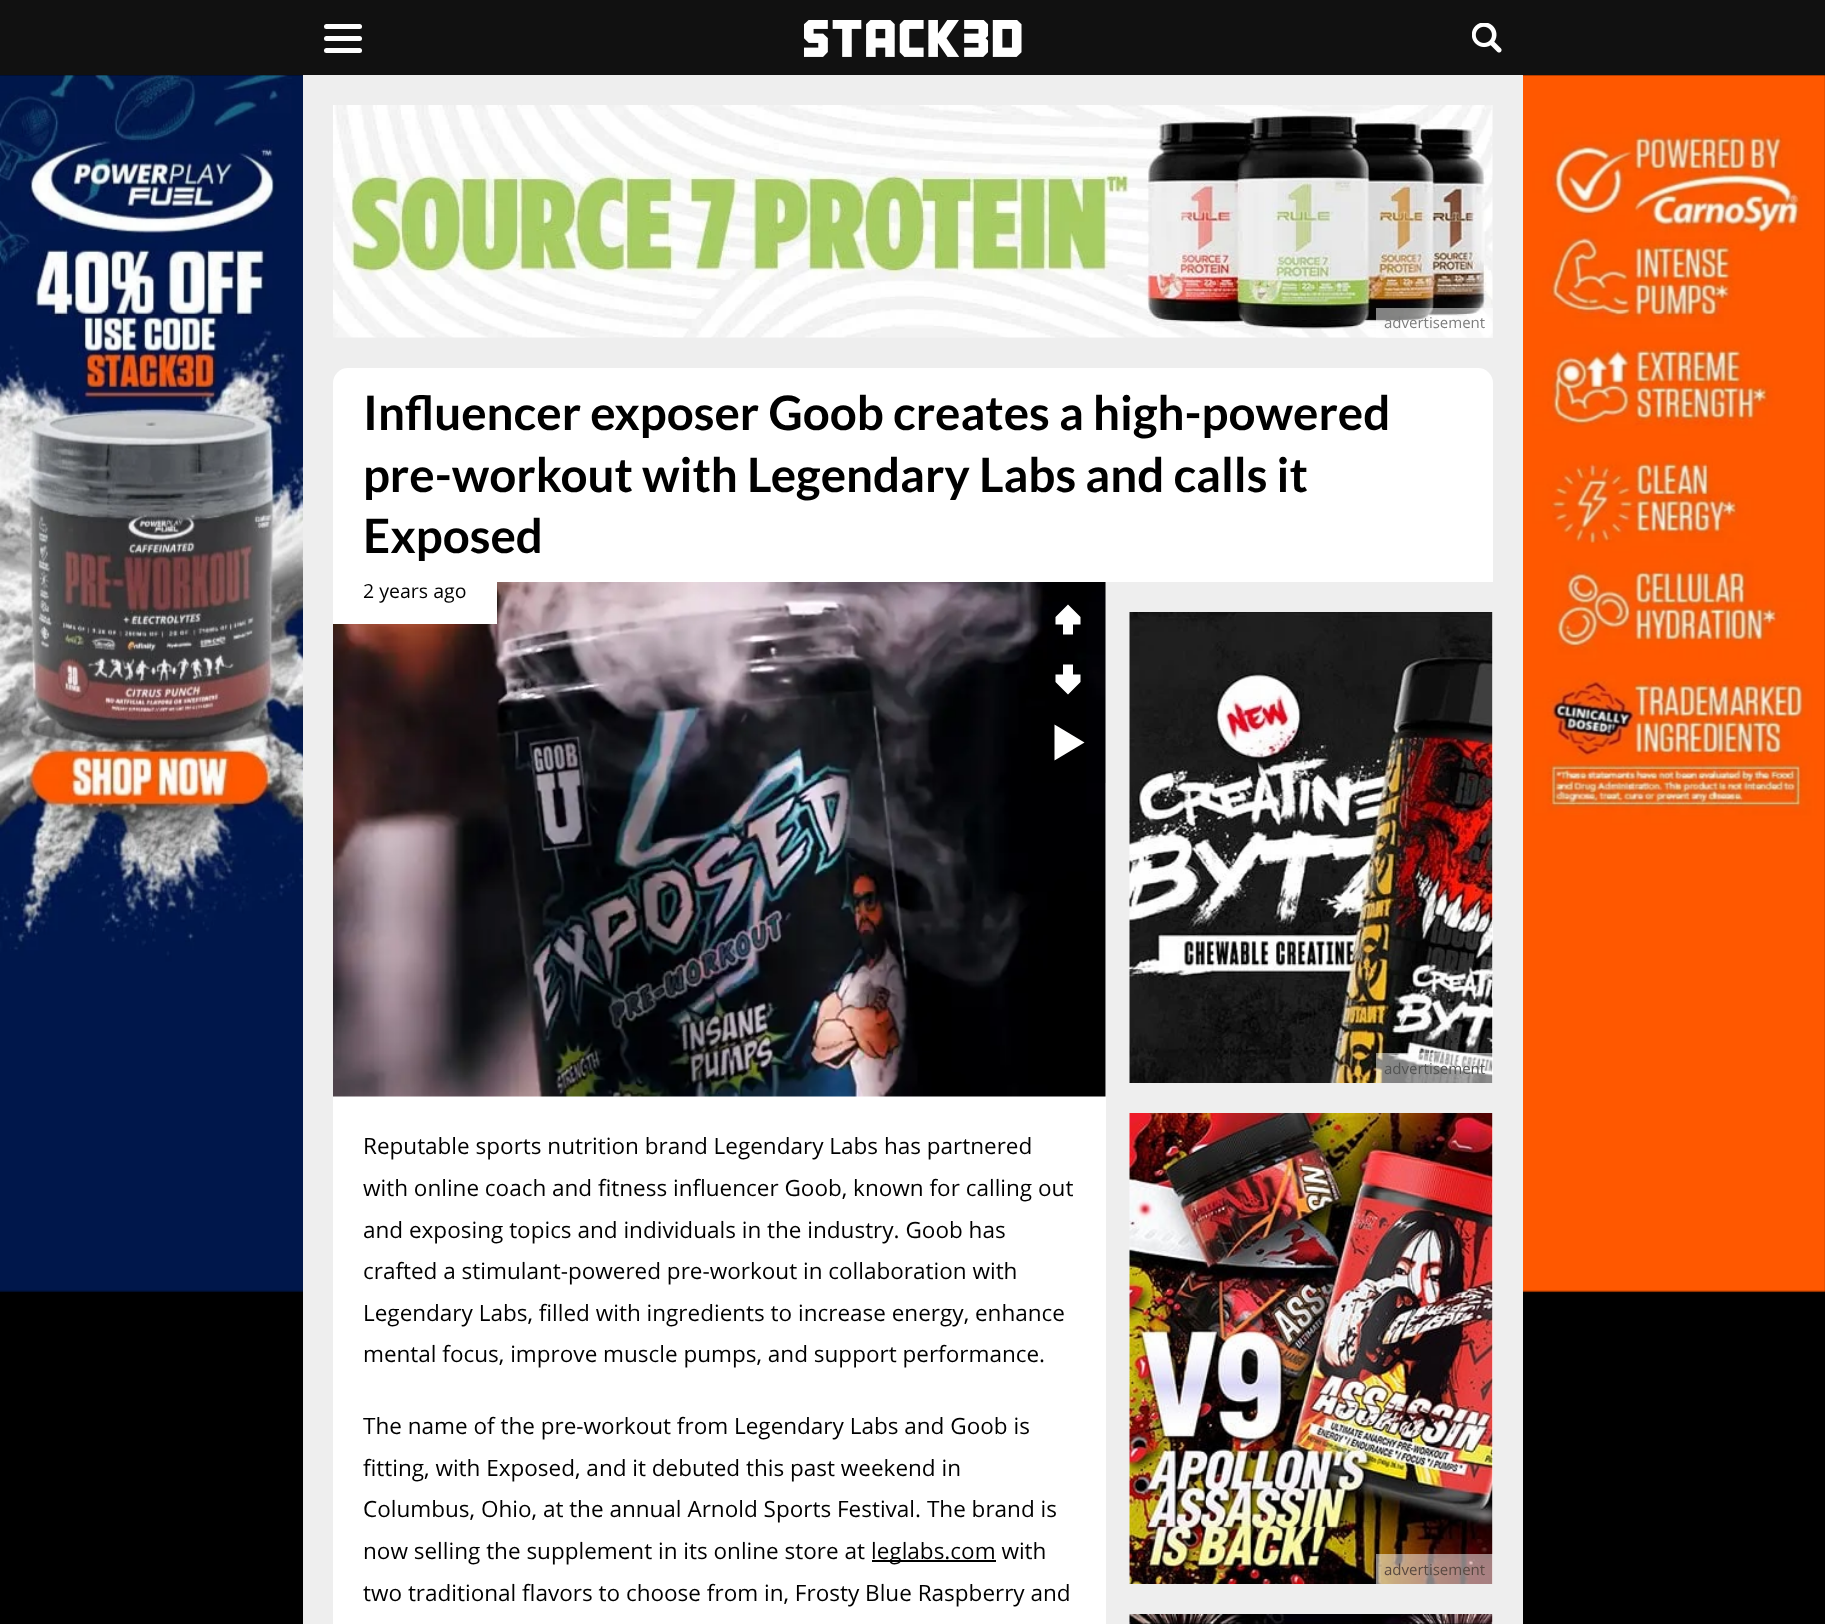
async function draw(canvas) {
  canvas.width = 1825
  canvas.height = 1624
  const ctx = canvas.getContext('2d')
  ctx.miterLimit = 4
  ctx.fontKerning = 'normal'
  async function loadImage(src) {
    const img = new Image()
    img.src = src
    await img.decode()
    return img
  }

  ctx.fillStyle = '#000'
  ctx.fillRect(0, 0, 1825, 1624)
  ctx.drawImage(await loadImage('image0.png'), 0, 75, 1825, 1218)
  ctx.fillStyle = '#111'
  ctx.fillRect(0, 0, 1825, 75)
  ctx.fillStyle = '#fff'
  ctx.beginPath()
  ctx.roundRect(324, 36, 38, 5, 2.5)
  ctx.fill()
  ctx.beginPath()
  ctx.roundRect(324, 24, 38, 5, 2.5)
  ctx.fill()
  ctx.beginPath()
  ctx.roundRect(324, 48, 38, 5, 2.5)
  ctx.fill()
  ctx.drawImage(await loadImage('image1.png'), 804, 20, 218, 37)
  ctx.drawImage(await loadImage('image2.png'), 1472, 23, 30, 30)
  ctx.fillStyle = '#eee'
  ctx.fillRect(303, 75, 1220, 1549)
  ctx.drawImage(await loadImage('image3.png'), 333, 105, 1160, 233)
  ctx.fillStyle = '#ffffff80'
  ctx.fillRect(1376, 308, 117, 30)
  ctx.font = '15px Open Sans'
  ctx.fillStyle = '#7c7c7c'
  ctx.fillText('advertisement', 1384, 328)
  ctx.fillStyle = '#fff'
  ctx.beginPath()
  ctx.roundRect(333, 368, 1160, 214, [15, 15, 0, 0])
  ctx.fill()
  ctx.font = 'bold 47.5px Lato'
  ctx.fillStyle = '#000'
  ctx.fillText('Influencer exposer Goob creates a high-powered', 363, 430)
  ctx.fillText('pre-workout with Legendary Labs and calls it', 363, 492)
  ctx.fillText('Exposed', 363, 553)
  ctx.fillStyle = '#fff'
  ctx.fillRect(333, 582, 773, 1042)
  ctx.drawImage(await loadImage('image4.png'), 333, 582, 773, 515)
  ctx.fillRect(333, 582, 164, 42)
  ctx.font = '19.5px Open Sans'
  ctx.fillStyle = '#000'
  ctx.fillText('2 years ago', 363, 598)
  ctx.fillStyle = '#0000001a'
  ctx.fillRect(1031, 582, 75, 201)
  ctx.fillStyle = '#fff'
  ctx.beginPath()
  ctx.moveTo(1068, 604.5)
  ctx.lineTo(1080.5, 617)
  ctx.lineTo(1080.5, 624.5)
  ctx.lineTo(1073, 624.5)
  ctx.lineTo(1073, 634.5)
  ctx.lineTo(1063, 634.5)
  ctx.lineTo(1063, 624.5)
  ctx.lineTo(1055.5, 624.5)
  ctx.lineTo(1055.5, 617)
  ctx.closePath()
  ctx.fill()
  ctx.beginPath()
  ctx.moveTo(1068, 694.5)
  ctx.lineTo(1055.5, 682)
  ctx.lineTo(1055.5, 674.5)
  ctx.lineTo(1063, 674.5)
  ctx.lineTo(1063, 664.5)
  ctx.lineTo(1073, 664.5)
  ctx.lineTo(1073, 674.5)
  ctx.lineTo(1080.5, 674.5)
  ctx.lineTo(1080.5, 682)
  ctx.closePath()
  ctx.fill()
  ctx.beginPath()
  ctx.moveTo(1054.5, 760.5)
  ctx.lineTo(1054.5, 724.5)
  ctx.lineTo(1084.5, 742.5)
  ctx.closePath()
  ctx.fill()
  ctx.font = '22.5px Open Sans'
  ctx.fillStyle = '#000'
  ctx.fillText('Reputable sports nutrition brand Legendary Labs has partnered', 363, 1154)
  ctx.fillText('with online coach and fitness influencer Goob, known for calling out', 363, 1196)
  ctx.fillText('and exposing topics and individuals in the industry. Goob has', 363, 1238)
  ctx.fillText('crafted a stimulant-powered pre-workout in collaboration with', 363, 1279)
  ctx.fillText('Legendary Labs, filled with ingredients to increase energy, enhance', 363, 1321)
  ctx.fillText('mental focus, improve muscle pumps, and support performance.', 363, 1362)
  ctx.fillText('The name of the pre-workout from Legendary Labs and Goob is', 363, 1434)
  ctx.fillText('fitting, with Exposed, and it debuted this past weekend in', 363, 1476)
  ctx.fillText('Columbus, Ohio, at the annual Arnold Sports Festival. The brand is', 363, 1517)
  ctx.fillText('now selling the supplement in its online store at', 363, 1559)
  ctx.fillRect(872, 1560, 124, 2)
  ctx.fillText('leglabs.com with', 871, 1559)
  ctx.fillText('two traditional flavors to choose from in, Frosty Blue Raspberry and', 363, 1601)
  ctx.fillStyle = '#fff'
  ctx.fillRect(1492, 612, 1, 471)
  ctx.drawImage(await loadImage('image5.png'), 1129, 612, 364, 471)
  ctx.fillStyle = '#ffffff80'
  ctx.fillRect(1376, 1053, 117, 30)
  ctx.font = '15px Open Sans'
  ctx.fillStyle = '#535453'
  ctx.fillText('advertisement', 1384, 1074)
  ctx.fillStyle = '#fff'
  ctx.fillRect(1492, 1113, 1, 471)
  ctx.drawImage(await loadImage('image6.png'), 1129, 1113, 364, 471)
  ctx.fillStyle = '#ffffff80'
  ctx.fillRect(1376, 1554, 117, 30)
  ctx.fillStyle = '#594941'
  ctx.fillText('advertisement', 1384, 1575)
  ctx.fillStyle = '#fff'
  ctx.fillRect(1492, 1614, 1, 10)
  ctx.drawImage(await loadImage('image7.png'), 1129, 1614, 364, 10)
}

draw(document.querySelector('canvas'))
